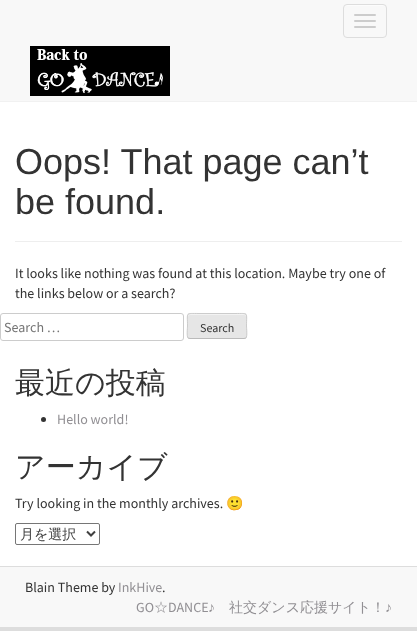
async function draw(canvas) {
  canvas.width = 417
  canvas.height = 631
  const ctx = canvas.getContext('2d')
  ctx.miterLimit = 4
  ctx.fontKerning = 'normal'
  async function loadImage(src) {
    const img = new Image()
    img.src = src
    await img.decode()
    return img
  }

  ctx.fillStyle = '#f8f8f8'
  ctx.fillRect(0, 0, 417, 631)
  ctx.fillStyle = '#f1f1f1'
  ctx.fillRect(0, 101, 417, 1)
  ctx.fillStyle = '#fcfcfc'
  ctx.beginPath()
  ctx.moveTo(347, 6)
  ctx.lineTo(383, 6)
  ctx.bezierCurveTo(385, 6, 386, 7, 386, 9)
  ctx.bezierCurveTo(386, 4, 381, 5, 377, 5)
  ctx.lineTo(353, 5)
  ctx.bezierCurveTo(349, 5, 344, 4, 344, 9)
  ctx.bezierCurveTo(344, 7, 345, 6, 347, 6)
  ctx.closePath()
  ctx.fill()
  ctx.beginPath()
  ctx.roundRect(343.5, 4.5, 43, 33, 3.5)
  ctx.strokeStyle = '#ddd'
  ctx.stroke()
  ctx.fillStyle = '#ccc'
  ctx.beginPath()
  ctx.roundRect(354, 14, 22, 2, 1)
  ctx.fill()
  ctx.beginPath()
  ctx.roundRect(354, 20, 22, 2, 1)
  ctx.fill()
  ctx.beginPath()
  ctx.roundRect(354, 26, 22, 2, 1)
  ctx.fill()
  ctx.drawImage(await loadImage('image0.png'), 30, 46, 140, 50)
  ctx.fillStyle = '#fff'
  ctx.fillRect(0, 102, 417, 464)
  ctx.fillStyle = '#eee'
  ctx.fillRect(15, 241, 387, 1)
  ctx.font = '36px Liberation Sans'
  ctx.fillStyle = '#333'
  ctx.fillText('Oops! That page can’t', 15, 174)
  ctx.fillText('be found.', 15, 214)
  ctx.font = '14px Source Sans Pro'
  ctx.fillText('It looks like nothing was found at this location. Maybe try one of', 15, 278)
  ctx.fillText('the links below or a search?', 15, 298)
  ctx.beginPath()
  ctx.roundRect(0.5, 313.5, 183, 27, 2.5)
  ctx.strokeStyle = '#ccc'
  ctx.stroke()
  ctx.fillStyle = '#757575'
  ctx.fillText('Search …', 4, 332)
  ctx.fillStyle = '#e6e6e6'
  ctx.beginPath()
  ctx.roundRect(187, 313, 60, 26, 3)
  ctx.fill()
  ctx.fillStyle = '#f3f3f3'
  ctx.beginPath()
  ctx.moveTo(190, 315)
  ctx.lineTo(244, 315)
  ctx.bezierCurveTo(245, 315, 246, 316, 246, 317)
  ctx.bezierCurveTo(246, 312, 239, 314, 235, 314)
  ctx.lineTo(199, 314)
  ctx.bezierCurveTo(195, 314, 188, 312, 188, 317)
  ctx.bezierCurveTo(188, 316, 189, 315, 190, 315)
  ctx.closePath()
  ctx.fill()
  ctx.beginPath()
  ctx.moveTo(246, 338)
  ctx.lineTo(244, 338.5)
  ctx.lineTo(190, 338.5)
  ctx.lineTo(188, 338)
  ctx.strokeStyle = '#bbb'
  ctx.stroke()
  ctx.beginPath()
  ctx.moveTo(188, 338)
  ctx.bezierCurveTo(186.5, 336, 187.5, 328.5, 187.5, 326)
  ctx.bezierCurveTo(187.5, 312, 185, 313.5, 199, 313.5)
  ctx.lineTo(235, 313.5)
  ctx.bezierCurveTo(249, 313.5, 246.5, 312, 246.5, 326)
  ctx.bezierCurveTo(246.5, 328.5, 247.5, 336, 246, 338)
  ctx.strokeStyle = '#ccc'
  ctx.stroke()
  ctx.font = '12px Source Sans Pro'
  ctx.fillStyle = '#333'
  ctx.fillText('Search', 200, 332)
  ctx.font = '500 30px WenQuanYi Zen Hei'
  ctx.fillText('最近の投稿', 15, 393)
  ctx.beginPath()
  ctx.arc(43.5, 419.5, 2.5, 0, 2 * Math.PI)
  ctx.fill()
  ctx.font = '14px Source Sans Pro'
  ctx.fillStyle = '#918f93'
  ctx.fillText('Hello world!', 57, 424)
  ctx.font = '500 30px WenQuanYi Zen Hei'
  ctx.fillStyle = '#333'
  ctx.fillText('アーカイブ', 15, 477)
  ctx.font = '14px Source Sans Pro'
  ctx.fillText('Try looking in the monthly archives.', 15, 508)
  ctx.font = '14px Noto Color Emoji'
  ctx.fillText('🙂', 226, 508)
  ctx.beginPath()
  ctx.roundRect(15.5, 523.5, 84, 21, 1.5)
  ctx.strokeStyle = '#767676'
  ctx.stroke()
  ctx.beginPath()
  ctx.moveTo(87, 531.5)
  ctx.lineTo(91, 535.5)
  ctx.lineTo(95, 531.5)
  ctx.strokeStyle = '#404040'
  ctx.lineWidth = 2
  ctx.stroke()
  ctx.font = '500 14px WenQuanYi Zen Hei'
  ctx.fillStyle = '#404040'
  ctx.fillText('月を選択', 20, 539)
  ctx.fillStyle = '#ddd'
  ctx.fillRect(0, 566, 417, 1)
  ctx.fillRect(0, 627, 417, 4)
  ctx.font = '14px Source Sans Pro'
  ctx.fillStyle = '#333'
  ctx.fillText('Blain Theme by', 25, 592)
  ctx.fillStyle = '#918f93'
  ctx.fillText('InkHive', 118, 592)
  ctx.fillStyle = '#333'
  ctx.fillText('.', 162, 592)
  ctx.fillStyle = '#918f93'
  ctx.fillText('GO', 136, 612)
  ctx.font = '500 14px WenQuanYi Zen Hei'
  ctx.fillText('☆', 154, 612)
  ctx.font = '14px Source Sans Pro'
  ctx.fillText('DANCE', 168, 612)
  ctx.font = '14px Liberation Sans'
  ctx.fillText('♪', 208, 612)
  ctx.font = '500 14px WenQuanYi Zen Hei'
  ctx.fillText('社交ダンス応援サイト！', 229, 612)
  ctx.font = '14px Liberation Sans'
  ctx.fillText('♪', 385, 612)
}

draw(document.querySelector('canvas'))
